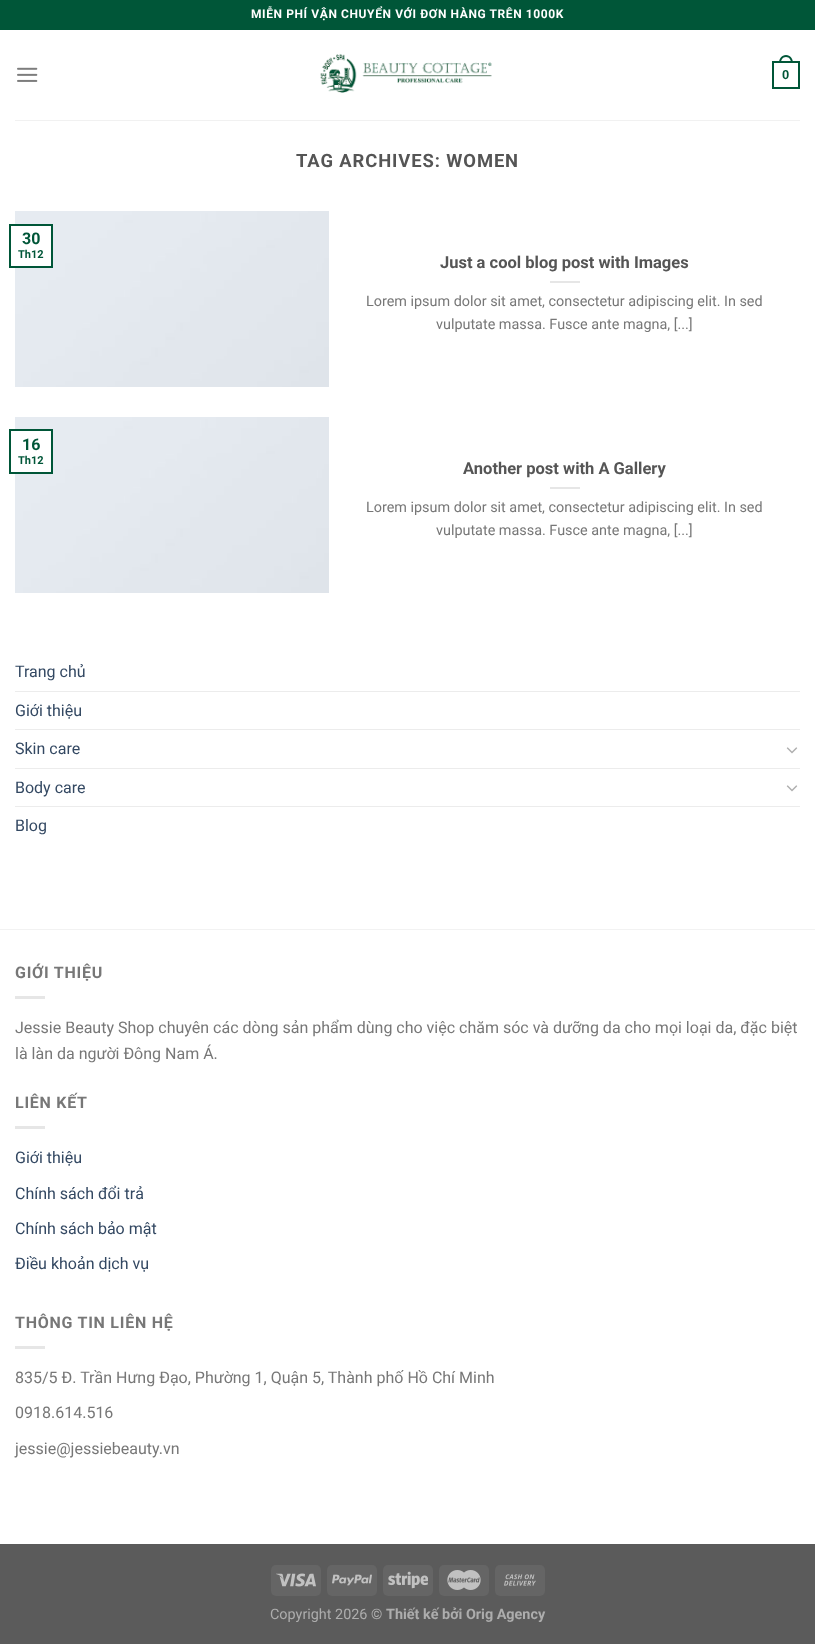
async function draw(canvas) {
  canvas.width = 815
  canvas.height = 1644
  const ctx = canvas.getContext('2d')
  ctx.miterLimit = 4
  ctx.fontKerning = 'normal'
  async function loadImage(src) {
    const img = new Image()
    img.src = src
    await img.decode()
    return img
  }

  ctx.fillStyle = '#5b5b5b'
  ctx.fillRect(0, 0, 815, 1644)
  ctx.fillStyle = '#fff'
  ctx.fillRect(0, 30, 815, 1514)
  ctx.fillStyle = '#005638'
  ctx.fillRect(0, 0, 815, 30)
  ctx.letterSpacing = '0.6px'
  ctx.font = 'bold 12px Roboto'
  ctx.fillStyle = '#fff'
  ctx.fillText('MIỄN PHÍ VẬN CHUYỂN VỚI ĐƠN HÀNG TRÊN 1000K', 251, 18)
  ctx.drawImage(await loadImage('image0.png'), 17, 67, 21, 15)
  ctx.drawImage(await loadImage('image1.png'), 320, 54, 172, 39)
  ctx.strokeStyle = '#005638'
  ctx.lineWidth = 2
  ctx.strokeRect(773, 62, 26, 26)
  ctx.fillStyle = '#005638'
  ctx.beginPath()
  ctx.moveTo(786, 55)
  ctx.bezierCurveTo(790.5, 55, 793, 59, 793, 63)
  ctx.lineTo(779, 63)
  ctx.bezierCurveTo(779, 59, 781.5, 55, 786, 55)
  ctx.closePath()
  ctx.moveTo(786, 57)
  ctx.bezierCurveTo(789.5, 57, 791, 60, 791, 63)
  ctx.lineTo(781, 63)
  ctx.bezierCurveTo(781, 60, 782.5, 57, 786, 57)
  ctx.closePath()
  ctx.fill('evenodd')
  ctx.letterSpacing = '0px'
  ctx.font = 'bold 13px Liberation Sans'
  ctx.fillText('0', 782, 79)
  ctx.fillStyle = '#f1f1f1'
  ctx.fillRect(15, 120, 785, 1)
  ctx.letterSpacing = '0.9px'
  ctx.font = 'bold 18.4px Roboto'
  ctx.fillStyle = '#555'
  ctx.fillText('TAG ARCHIVES: WOMEN', 296, 167)
  ctx.drawImage(await loadImage('image2.png'), 15, 211, 314, 176)
  ctx.fillStyle = '#fff'
  ctx.fillRect(15, 226, 36, 40)
  ctx.strokeRect(10, 225, 42, 42)
  ctx.letterSpacing = '0px'
  ctx.font = 'bold 16px Roboto'
  ctx.fillStyle = '#005638'
  ctx.fillText('30', 22, 244)
  ctx.font = 'bold 11px Roboto'
  ctx.fillText('Th12', 18, 258)
  ctx.font = 'bold 16.5px Roboto'
  ctx.fillStyle = '#555'
  ctx.fillText('Just a cool blog post with Images', 440, 268)
  ctx.fillStyle = '#e6e6e6'
  ctx.fillRect(550, 281, 30, 2)
  ctx.font = '14.4px Roboto'
  ctx.fillStyle = '#777'
  ctx.fillText('Lorem ipsum dolor sit amet, consectetur adipiscing elit. In sed', 366, 306)
  ctx.fillText('vulputate massa. Fusce ante magna, [...]', 436, 329)
  ctx.drawImage(await loadImage('image2.png'), 15, 417, 314, 176)
  ctx.fillStyle = '#fff'
  ctx.fillRect(15, 431, 36, 41)
  ctx.strokeRect(10, 430, 42, 43)
  ctx.font = 'bold 16px Roboto'
  ctx.fillStyle = '#005638'
  ctx.fillText('16', 22, 450)
  ctx.font = 'bold 11px Roboto'
  ctx.fillText('Th12', 18, 464)
  ctx.font = 'bold 16.5px Roboto'
  ctx.fillStyle = '#555'
  ctx.fillText('Another post with A Gallery', 463, 474)
  ctx.fillStyle = '#e6e6e6'
  ctx.fillRect(550, 487, 30, 2)
  ctx.font = '14.4px Roboto'
  ctx.fillStyle = '#777'
  ctx.fillText('Lorem ipsum dolor sit amet, consectetur adipiscing elit. In sed', 366, 512)
  ctx.fillText('vulputate massa. Fusce ante magna, [...]', 436, 535)
  ctx.font = '16px Roboto'
  ctx.fillStyle = '#334862'
  ctx.fillText('Trang chủ', 15, 677)
  ctx.fillStyle = '#ececec'
  ctx.fillRect(15, 691, 785, 1)
  ctx.fillStyle = '#334862'
  ctx.fillText('Giới thiệu', 15, 716)
  ctx.fillStyle = '#ececec'
  ctx.fillRect(15, 729, 785, 1)
  ctx.fillStyle = '#334862'
  ctx.fillText('Skin care', 15, 754)
  ctx.drawImage(await loadImage('image3.png'), 786, 747, 12, 7)
  ctx.fillStyle = '#ececec'
  ctx.fillRect(15, 768, 785, 1)
  ctx.fillStyle = '#334862'
  ctx.fillText('Body care', 15, 793)
  ctx.drawImage(await loadImage('image3.png'), 786, 785, 12, 7)
  ctx.fillStyle = '#ececec'
  ctx.fillRect(15, 806, 785, 1)
  ctx.fillStyle = '#334862'
  ctx.fillText('Blog', 15, 831)
  ctx.fillStyle = '#f2f2f2'
  ctx.fillRect(0, 929, 815, 1)
  ctx.letterSpacing = '0.75px'
  ctx.font = 'bold 16px Roboto'
  ctx.fillStyle = '#777'
  ctx.fillText('GIỚI THIỆU', 15, 978)
  ctx.fillStyle = '#e6e6e6'
  ctx.fillRect(15, 996, 30, 3)
  ctx.letterSpacing = '0px'
  ctx.font = '16px Roboto'
  ctx.fillStyle = '#777'
  ctx.fillText('Jessie Beauty Shop chuyên các dòng sản phẩm dùng cho việc chăm sóc và dưỡng da cho mọi loại da, đặc biệt', 15, 1033)
  ctx.fillText('là làn da người Đông Nam Á.', 15, 1059)
  ctx.letterSpacing = '0.75px'
  ctx.font = 'bold 16px Roboto'
  ctx.fillText('LIÊN KẾT', 15, 1108)
  ctx.fillStyle = '#e6e6e6'
  ctx.fillRect(15, 1126, 30, 3)
  ctx.letterSpacing = '0px'
  ctx.font = '16px Roboto'
  ctx.fillStyle = '#334862'
  ctx.fillText('Giới thiệu', 15, 1163)
  ctx.fillText('Chính sách đổi trả', 15, 1199)
  ctx.fillText('Chính sách bảo mật', 15, 1234)
  ctx.fillText('Điều khoản dịch vụ', 15, 1269)
  ctx.letterSpacing = '0.75px'
  ctx.font = 'bold 16px Roboto'
  ctx.fillStyle = '#777'
  ctx.fillText('THÔNG TIN LIÊN HỆ', 15, 1328)
  ctx.fillStyle = '#e6e6e6'
  ctx.fillRect(15, 1346, 30, 3)
  ctx.letterSpacing = '0px'
  ctx.font = '16px Roboto'
  ctx.fillStyle = '#777'
  ctx.fillText('835/5 Đ. Trần Hưng Đạo, Phường 1, Quận 5, Thành phố Hồ Chí Minh', 15, 1383)
  ctx.fillText('0918.614.516', 15, 1418)
  ctx.fillText('jessie@jessiebeauty.vn', 15, 1454)
  ctx.fillStyle = '#656565'
  ctx.beginPath()
  ctx.roundRect(271, 1565, 50, 31, 5)
  ctx.fill()
  ctx.drawImage(await loadImage('image4.png'), 276, 1573, 40, 14)
  ctx.beginPath()
  ctx.roundRect(327, 1565, 50, 31, 5)
  ctx.fill()
  ctx.drawImage(await loadImage('image5.png'), 332, 1574, 40, 12)
  ctx.beginPath()
  ctx.roundRect(383, 1565, 50, 31, 5)
  ctx.fill()
  ctx.drawImage(await loadImage('image6.png'), 388, 1571, 40, 18)
  ctx.beginPath()
  ctx.roundRect(439, 1565, 50, 31, 5)
  ctx.fill()
  ctx.drawImage(await loadImage('image7.png'), 447, 1570, 34, 20)
  ctx.beginPath()
  ctx.roundRect(495, 1565, 50, 31, 5)
  ctx.fill()
  ctx.drawImage(await loadImage('image8.png'), 504, 1574, 32, 12)
  ctx.font = '14.4px Roboto'
  ctx.fillStyle = '#adadad'
  ctx.fillText('Copyright 2026 ©', 270, 1619)
  ctx.font = 'bold 14.4px Roboto'
  ctx.fillText('Thiết kế bởi Orig Agency', 386, 1619)
}

draw(document.querySelector('canvas'))
